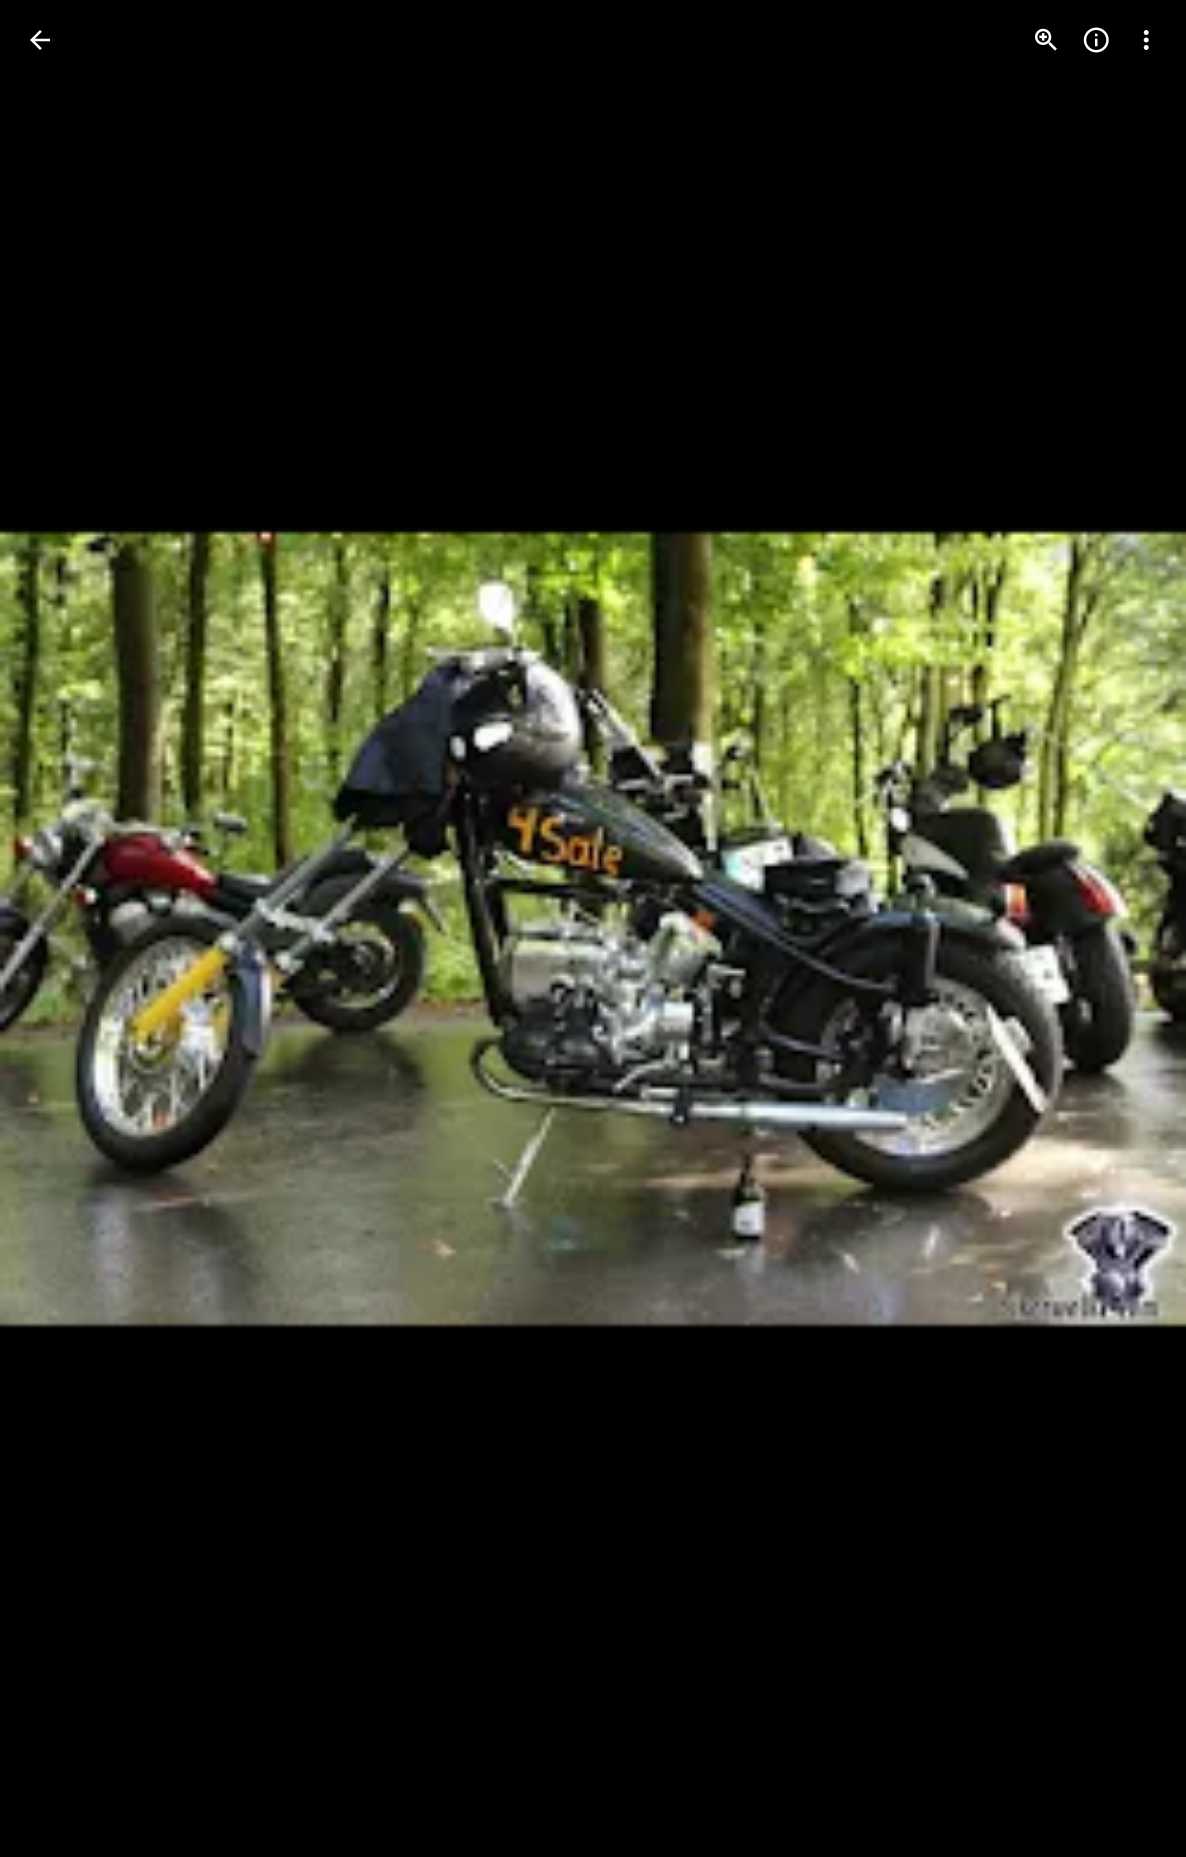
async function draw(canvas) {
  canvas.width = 1186
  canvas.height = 1857
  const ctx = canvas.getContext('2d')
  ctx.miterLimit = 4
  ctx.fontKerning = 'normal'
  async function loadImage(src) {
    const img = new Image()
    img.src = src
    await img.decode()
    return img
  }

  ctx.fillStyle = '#000'
  ctx.fillRect(0, 0, 1186, 1857)
  ctx.drawImage(await loadImage('image0.png'), 30, 30, 20, 20)
  ctx.drawImage(await loadImage('image1.png'), 1035, 28, 22, 23)
  ctx.drawImage(await loadImage('image2.png'), 1083, 27, 26, 26)
  ctx.drawImage(await loadImage('image3.png'), 1143, 30, 6, 20)
  ctx.drawImage(await loadImage('image4.png'), 0, 528, 1186, 800)
}

draw(document.querySelector('canvas'))
